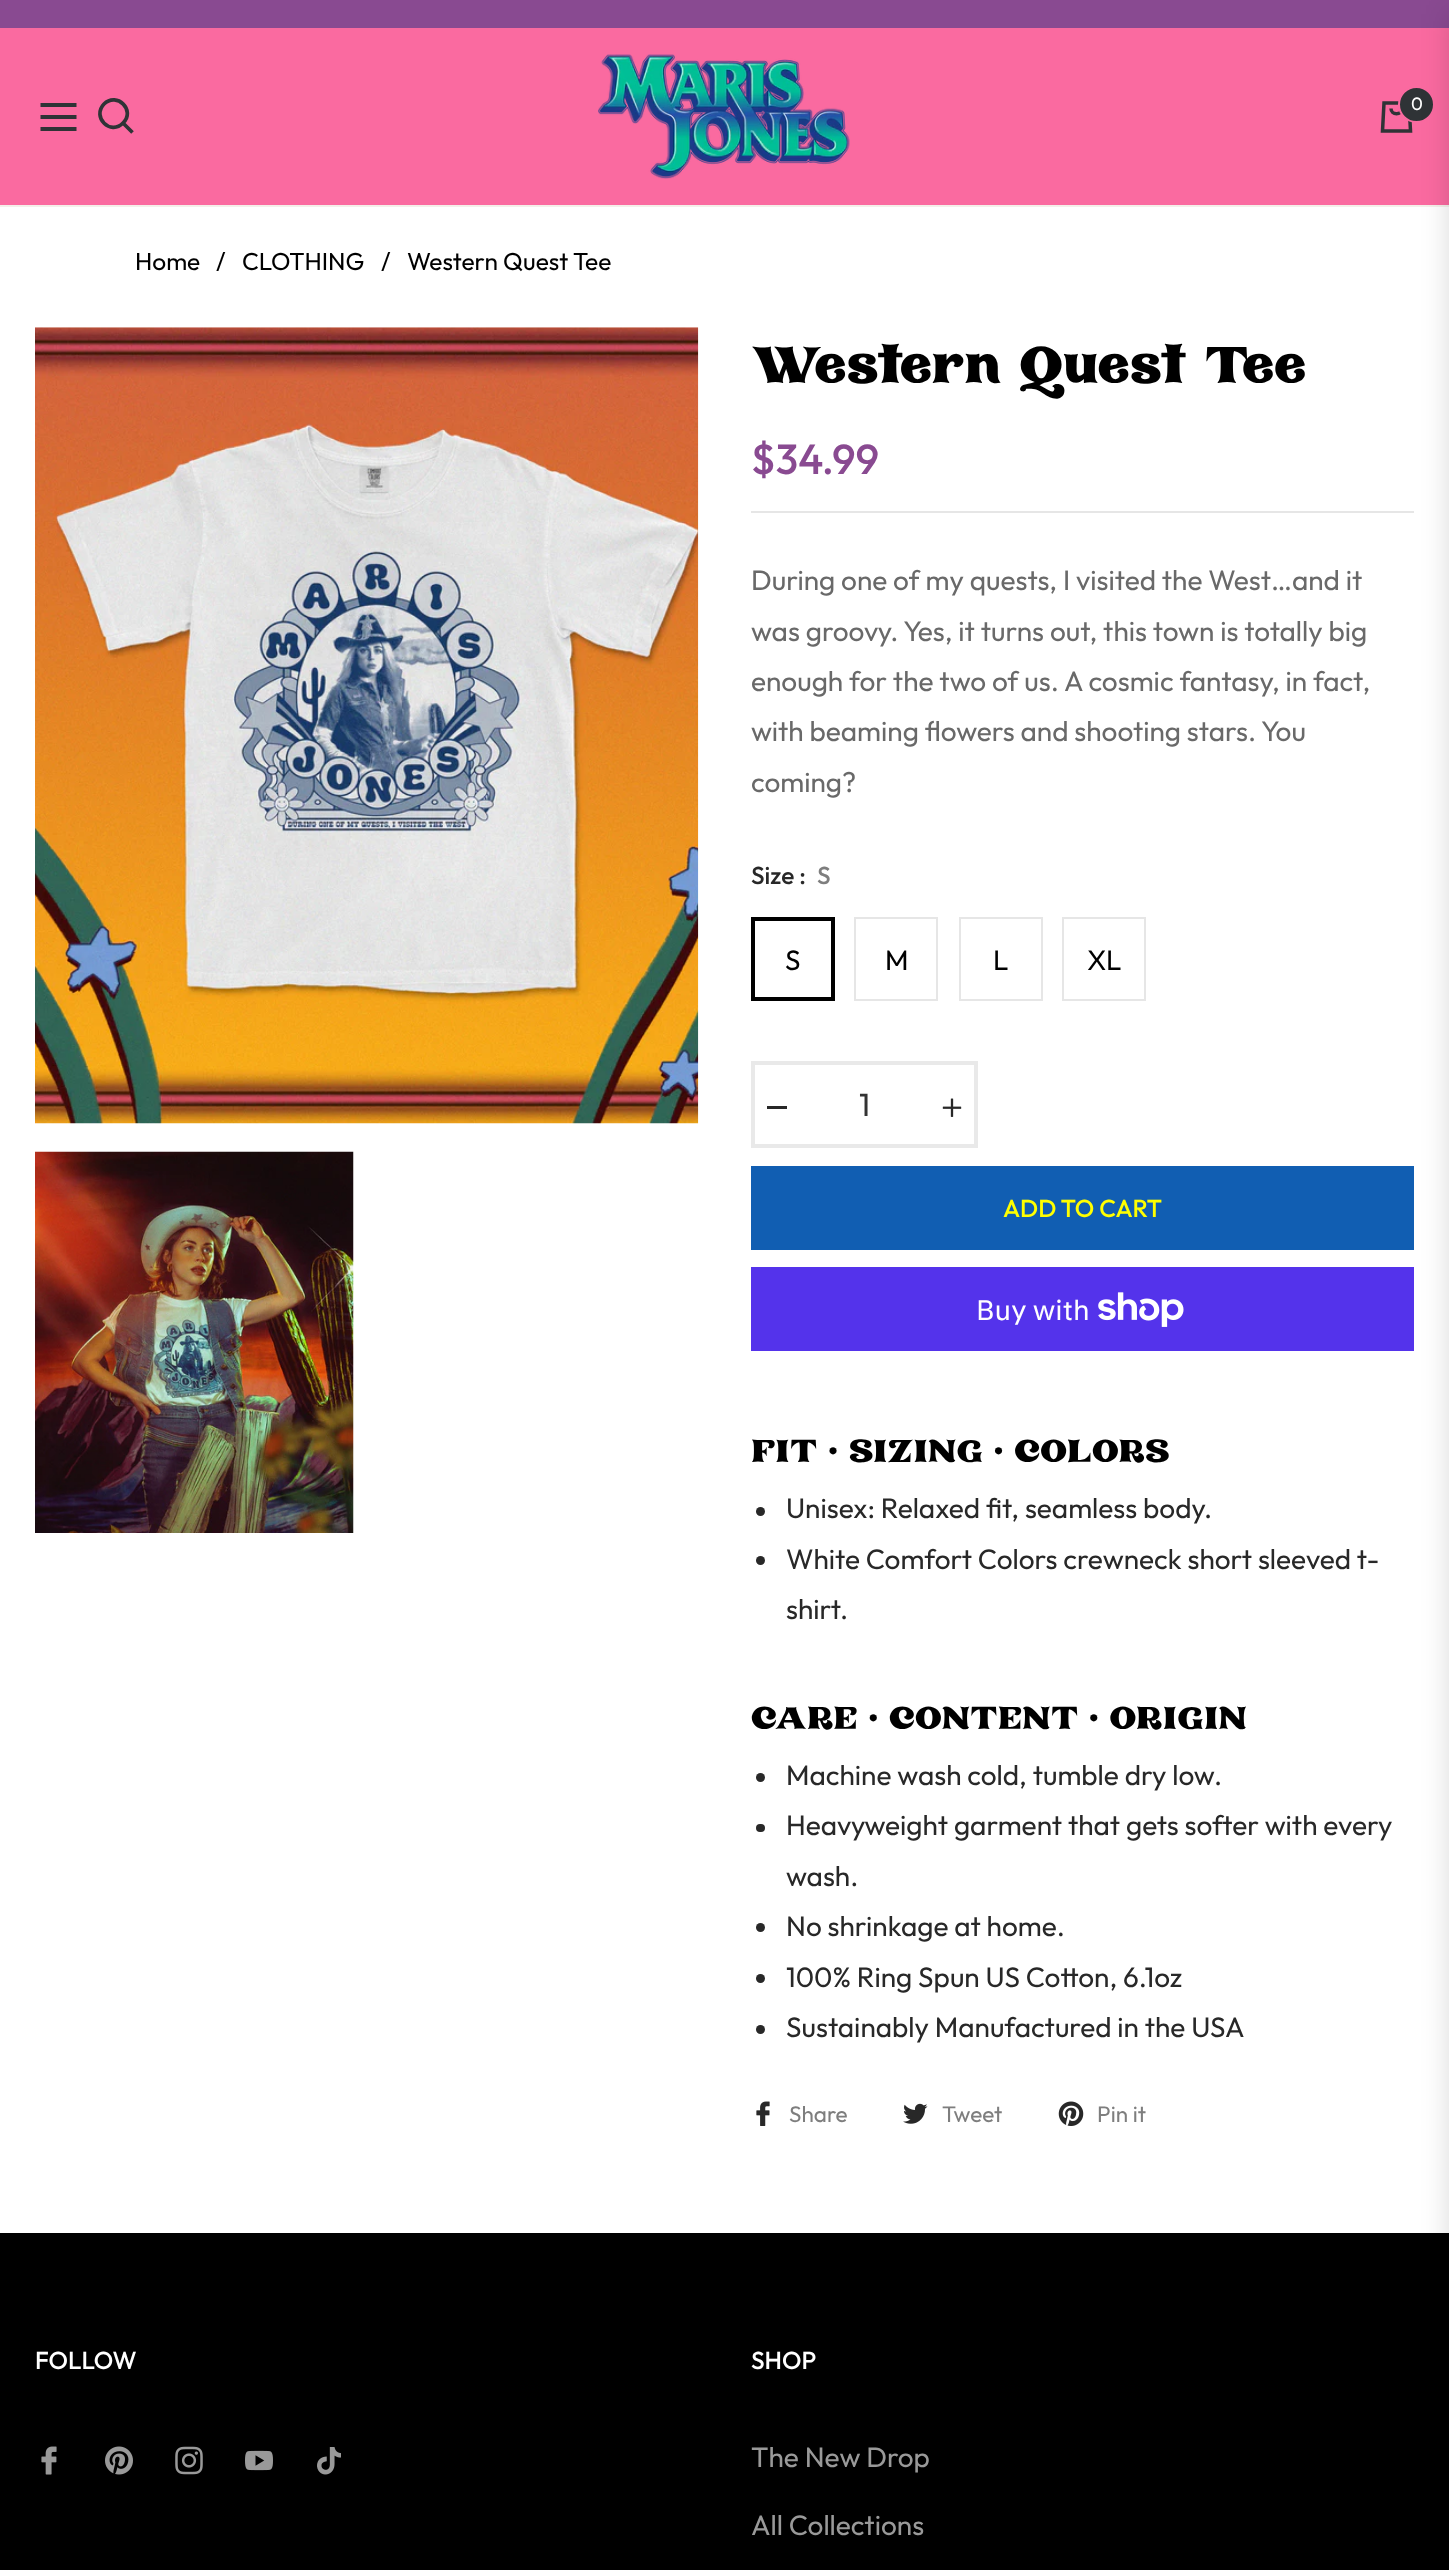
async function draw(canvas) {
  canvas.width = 1449
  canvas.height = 2570
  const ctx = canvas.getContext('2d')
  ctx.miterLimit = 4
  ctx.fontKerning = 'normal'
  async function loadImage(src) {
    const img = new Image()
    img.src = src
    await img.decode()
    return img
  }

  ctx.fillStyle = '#fff'
  ctx.fillRect(0, 0, 1449, 2570)
  ctx.fillStyle = '#894a91'
  ctx.fillRect(0, 0, 1449, 28)
  ctx.fillStyle = '#fa6aa0'
  ctx.fillRect(0, 28, 1449, 177)
  ctx.beginPath()
  ctx.moveTo(40.5, 105)
  ctx.lineTo(76.5, 105)
  ctx.moveTo(40.5, 129)
  ctx.lineTo(76.5, 129)
  ctx.closePath()
  ctx.moveTo(40.5, 117)
  ctx.lineTo(76.5, 117)
  ctx.closePath()
  ctx.strokeStyle = '#2f3336'
  ctx.lineWidth = 4
  ctx.stroke()
  ctx.beginPath()
  ctx.moveTo(123, 123)
  ctx.bezierCurveTo(136, 110.5, 117, 91.5, 104, 104)
  ctx.bezierCurveTo(91.5, 117, 110.5, 136, 123, 123)
  ctx.closePath()
  ctx.moveTo(123, 123)
  ctx.lineTo(132.5, 132.5)
  ctx.lineWidth = 3.7
  ctx.stroke()
  ctx.drawImage(await loadImage('image0.png'), 598, 54, 252, 125)
  ctx.beginPath()
  ctx.moveTo(1384, 103)
  ctx.lineTo(1409, 103)
  ctx.lineTo(1410.5, 131)
  ctx.lineTo(1382.5, 131)
  ctx.closePath()
  ctx.moveTo(1391, 108.5)
  ctx.bezierCurveTo(1391, 115.5, 1402, 115.5, 1402, 108.5)
  ctx.lineWidth = 3.5
  ctx.stroke()
  ctx.fillStyle = '#2f3336'
  ctx.beginPath()
  ctx.arc(1416.5, 104.5, 17.5, 0, 2 * Math.PI)
  ctx.fill()
  ctx.strokeStyle = '#fa6aa0'
  ctx.lineWidth = 2
  ctx.stroke()
  ctx.fillStyle = '#f4efe9'
  ctx.fillRect(0, 205, 1449, 2)
  ctx.fillStyle = '#e6e6e6'
  ctx.fillRect(751, 511, 663, 2)
  ctx.fillStyle = '#115eb2'
  ctx.fillRect(751, 1166, 663, 84)
  ctx.fillStyle = '#5433eb'
  ctx.fillRect(751, 1267, 663, 84)
  ctx.fillStyle = '#000'
  ctx.fillRect(0, 2233, 1449, 337)
  ctx.fillStyle = '#00000026'
  ctx.filter = 'blur(14px)'
  ctx.beginPath()
  ctx.rect(1449, 14, 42, 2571)
  ctx.fill()
  ctx.filter = 'none'
  ctx.font = '18px Outfit'
  ctx.fillStyle = '#fff'
  ctx.fillText('0', 1411, 110)
  ctx.font = '24.5px Outfit'
  ctx.fillStyle = '#000'
  ctx.fillText('Home', 135, 270)
  ctx.fillText('/', 216, 270)
  ctx.fillText('CLOTHING', 242, 270)
  ctx.fillText('/', 381, 270)
  ctx.fillText('Western Quest Tee', 407, 270)
  ctx.drawImage(await loadImage('image1.png'), 35, 327, 664, 797)
  ctx.drawImage(await loadImage('image2.png'), 35, 1151, 319, 382)
  ctx.font = '45.5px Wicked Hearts'
  ctx.fillText('Western Quest Tee', 751, 383)
  ctx.font = '500 42px Outfit'
  ctx.fillStyle = '#894a91'
  ctx.fillText('$34.99', 751, 474)
  ctx.font = '28px Outfit'
  ctx.fillStyle = '#696969'
  ctx.fillText('During one of my quests, I visited the West…and it', 751, 590)
  ctx.fillText('was groovy. Yes, it turns out, this town is totally big', 751, 641)
  ctx.fillText('enough for the two of us. A cosmic fantasy, in fact,', 751, 691)
  ctx.fillText('with beaming flowers and shooting stars. You', 751, 741)
  ctx.fillText('coming?', 751, 792)
  ctx.font = '500 24.5px Outfit'
  ctx.fillStyle = '#282828'
  ctx.fillText('Size :', 751, 884)
  ctx.fillStyle = '#7e7e7e'
  ctx.fillText('S', 817, 884)
  ctx.strokeStyle = '#000'
  ctx.lineWidth = 4
  ctx.strokeRect(753, 919, 80, 80)
  ctx.font = '28px Outfit'
  ctx.fillStyle = '#000'
  ctx.fillText('S', 785, 970)
  ctx.strokeStyle = '#e6e6e6'
  ctx.lineWidth = 2
  ctx.strokeRect(855, 918, 82, 82)
  ctx.fillText('M', 885, 970)
  ctx.strokeRect(960, 918, 82, 82)
  ctx.fillText('L', 993, 970)
  ctx.strokeRect(1063, 918, 82, 82)
  ctx.fillText('XL', 1087, 970)
  ctx.strokeStyle = '#e9e9e9'
  ctx.lineWidth = 4
  ctx.strokeRect(753, 1063, 223, 83)
  ctx.fillStyle = '#282828'
  ctx.fillRect(767, 1106, 20, 3)
  ctx.font = '32px Outfit'
  ctx.fillStyle = '#333'
  ctx.fillText('1', 859, 1116)
  ctx.drawImage(await loadImage('image3.png'), 942, 1098, 20, 19)
  ctx.font = '500 24.5px Outfit'
  ctx.fillStyle = '#ff0'
  ctx.fillText('ADD TO CART', 1003, 1217)
  ctx.font = '28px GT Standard'
  ctx.fillStyle = '#fff'
  ctx.fillText('Buy with', 976, 1320)
  ctx.drawImage(await loadImage('image4.png'), 1098, 1292, 86, 35)
  ctx.font = '28px Wicked Hearts'
  ctx.fillStyle = '#000'
  ctx.fillText('FIT • SIZING • COLORS', 751, 1462)
  ctx.fillStyle = '#282828'
  ctx.beginPath()
  ctx.arc(760.5, 1511.5, 4.5, 0, 2 * Math.PI)
  ctx.fill()
  ctx.font = '28px Outfit'
  ctx.fillText('Unisex: Relaxed fit, seamless body.', 786, 1518)
  ctx.beginPath()
  ctx.arc(760.5, 1560.5, 4.5, 0, 2 * Math.PI)
  ctx.fill()
  ctx.fillText('White Comfort Colors crewneck short sleeved t-', 786, 1569)
  ctx.fillText('shirt.', 786, 1619)
  ctx.font = '28px Wicked Hearts'
  ctx.fillStyle = '#000'
  ctx.fillText('CARE • CONTENT • ORIGIN', 751, 1729)
  ctx.fillStyle = '#282828'
  ctx.beginPath()
  ctx.arc(760.5, 1777.5, 4.5, 0, 2 * Math.PI)
  ctx.fill()
  ctx.font = '28px Outfit'
  ctx.fillText('Machine wash cold, tumble dry low.', 786, 1785)
  ctx.beginPath()
  ctx.roundRect(756, 1824, 9, 8, 4)
  ctx.fill()
  ctx.fillText('Heavyweight garment that gets softer with every', 786, 1835)
  ctx.fillText('wash.', 786, 1886)
  ctx.beginPath()
  ctx.arc(760.5, 1927.5, 4.5, 0, 2 * Math.PI)
  ctx.fill()
  ctx.fillText('No shrinkage at home.', 786, 1936)
  ctx.beginPath()
  ctx.arc(760.5, 1978.5, 4.5, 0, 2 * Math.PI)
  ctx.fill()
  ctx.fillText('100% Ring Spun US Cotton, 6.1oz', 786, 1987)
  ctx.beginPath()
  ctx.arc(760.5, 2029.5, 4.5, 0, 2 * Math.PI)
  ctx.fill()
  ctx.fillText('Sustainably Manufactured in the USA', 786, 2037)
  ctx.drawImage(await loadImage('image5.png'), 756, 2101, 14, 25)
  ctx.font = '22.5px Outfit'
  ctx.fillStyle = '#7e7e7e'
  ctx.fillText('Share', 789, 2122)
  ctx.drawImage(await loadImage('image6.png'), 903, 2103, 25, 21)
  ctx.fillText('Tweet', 942, 2122)
  ctx.drawImage(await loadImage('image7.png'), 1058, 2101, 26, 25)
  ctx.fillText('Pin it', 1097, 2122)
  ctx.font = '500 24.5px Outfit'
  ctx.fillStyle = '#fff'
  ctx.fillText('FOLLOW', 35, 2369)
  ctx.drawImage(await loadImage('image8.png'), 41, 2446, 16, 29)
  ctx.drawImage(await loadImage('image9.png'), 105, 2446, 28, 29)
  ctx.drawImage(await loadImage('image10.png'), 175, 2446, 28, 29)
  ctx.drawImage(await loadImage('image11.png'), 245, 2450, 28, 21)
  ctx.drawImage(await loadImage('image12.png'), 317, 2447, 24, 28)
  ctx.fillText('SHOP', 751, 2369)
  ctx.font = '28px Outfit'
  ctx.fillStyle = '#999'
  ctx.fillText('The New Drop', 751, 2467)
  ctx.fillText('All Collections', 751, 2535)
}

draw(document.querySelector('canvas'))
